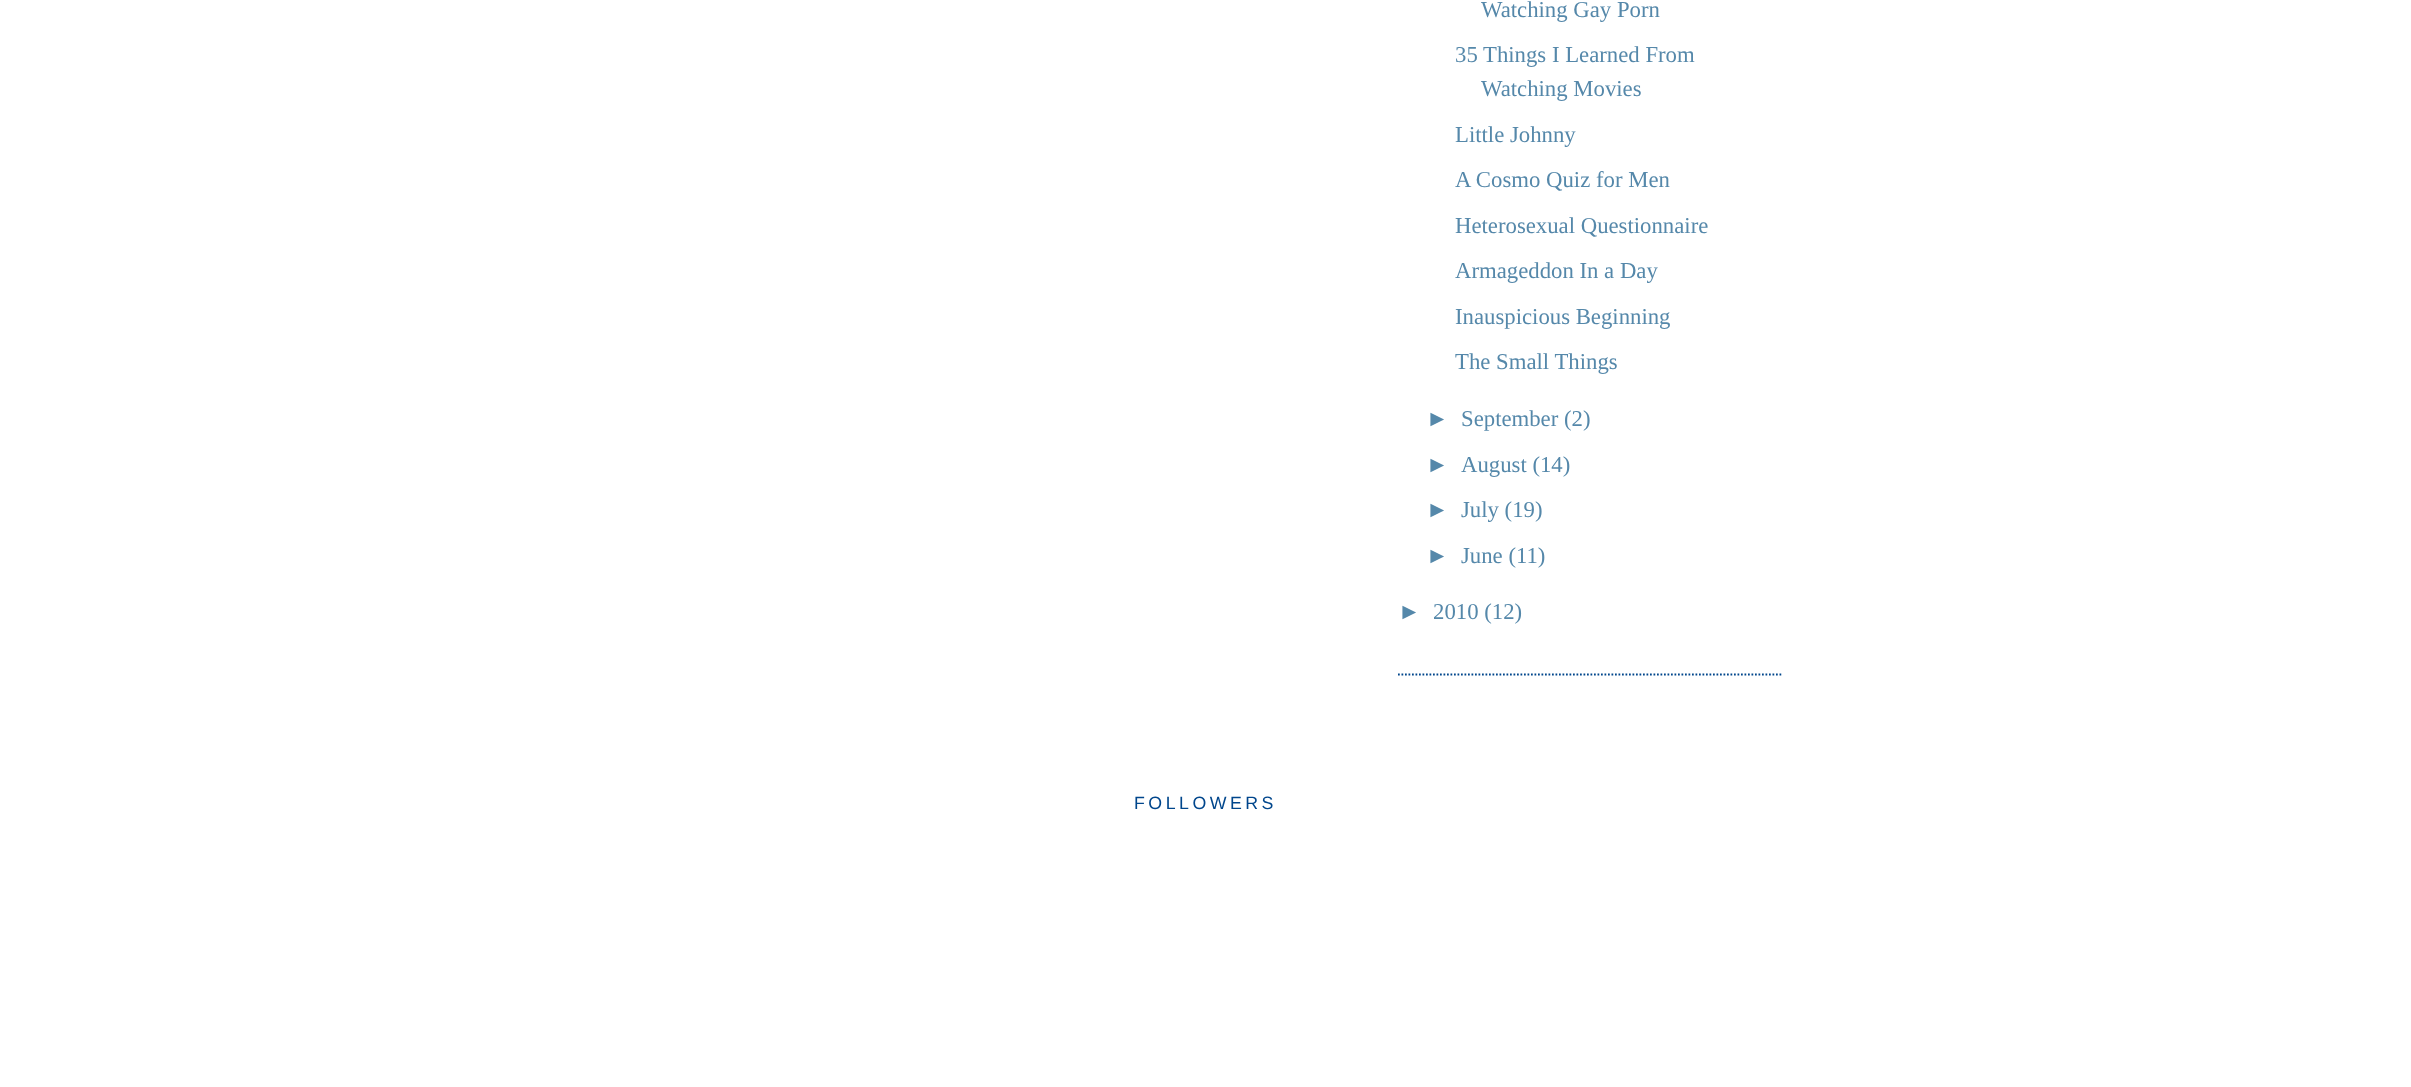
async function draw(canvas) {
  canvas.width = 2411
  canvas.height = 1087
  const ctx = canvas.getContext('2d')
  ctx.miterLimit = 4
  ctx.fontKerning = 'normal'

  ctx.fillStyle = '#fff'
  ctx.fillRect(0, 0, 2411, 1087)
  ctx.beginPath()
  ctx.moveTo(1398, 674.5)
  ctx.lineTo(1783, 674.5)
  ctx.strokeStyle = '#00468c'
  ctx.lineWidth = 1.8
  ctx.setLineDash([1.75, 1.75])
  ctx.stroke()
  ctx.font = '22.75px Liberation Serif'
  ctx.fillStyle = '#58a'
  ctx.fillText('Watching Gay Porn', 1481, 17)
  ctx.fillText('35 Things I Learned From', 1455, 62)
  ctx.fillText('Watching Movies', 1481, 96)
  ctx.fillText('Little Johnny', 1455, 142)
  ctx.fillText('A Cosmo Quiz for Men', 1455, 187)
  ctx.fillText('Heterosexual Questionnaire', 1455, 233)
  ctx.fillText('Armageddon In a Day', 1455, 278)
  ctx.fillText('Inauspicious Beginning', 1455, 324)
  ctx.fillText('The Small Things', 1455, 369)
  ctx.font = '22.75px Liberation Sans'
  ctx.fillText('►', 1426, 426)
  ctx.font = '22.75px Liberation Serif'
  ctx.fillText('September (2)', 1461, 426)
  ctx.font = '22.75px Liberation Sans'
  ctx.fillText('►', 1426, 472)
  ctx.font = '22.75px Liberation Serif'
  ctx.fillText('August (14)', 1461, 472)
  ctx.font = '22.75px Liberation Sans'
  ctx.fillText('►', 1426, 517)
  ctx.font = '22.75px Liberation Serif'
  ctx.fillText('July (19)', 1461, 517)
  ctx.font = '22.75px Liberation Sans'
  ctx.fillText('►', 1426, 563)
  ctx.font = '22.75px Liberation Serif'
  ctx.fillText('June (11)', 1461, 563)
  ctx.font = '22.75px Liberation Sans'
  ctx.fillText('►', 1398, 619)
  ctx.font = '22.75px Liberation Serif'
  ctx.fillText('2010 (12)', 1433, 619)
  ctx.letterSpacing = '3.5px'
  ctx.font = '17.75px Liberation Sans'
  ctx.fillStyle = '#00468c'
  ctx.fillText('FOLLOWERS', 1134, 809)
}

draw(document.querySelector('canvas'))
